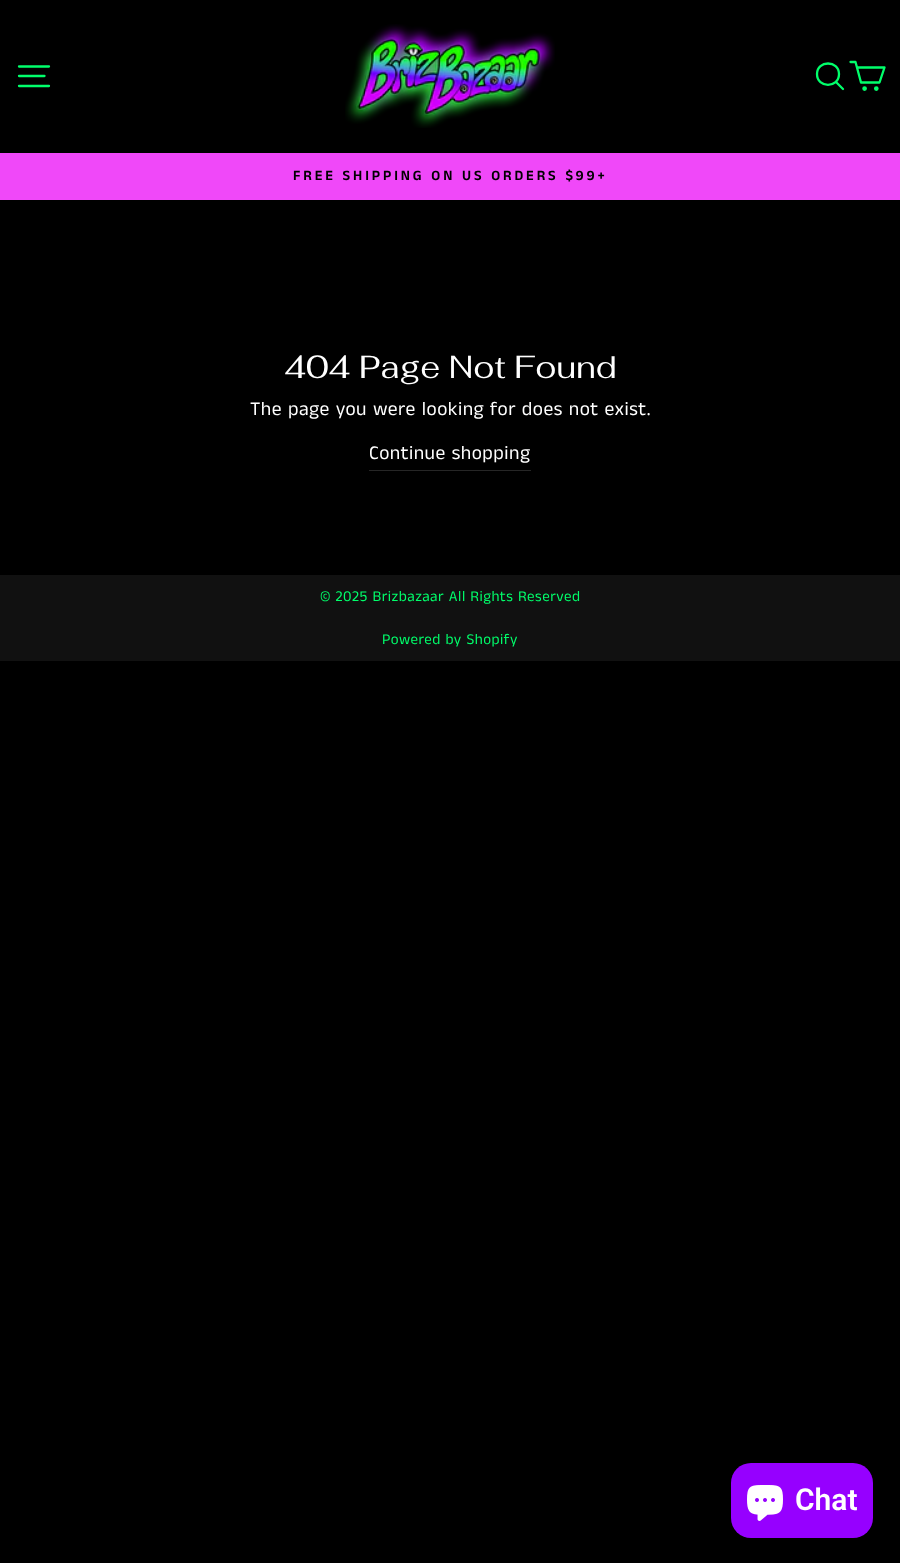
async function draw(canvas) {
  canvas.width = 900
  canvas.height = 1563
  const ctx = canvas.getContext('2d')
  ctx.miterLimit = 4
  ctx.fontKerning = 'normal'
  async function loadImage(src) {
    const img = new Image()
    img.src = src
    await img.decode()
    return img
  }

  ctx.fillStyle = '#000'
  ctx.fillRect(0, 0, 900, 1563)
  ctx.beginPath()
  ctx.moveTo(19, 66.5)
  ctx.lineTo(49, 66.5)
  ctx.moveTo(19, 76)
  ctx.lineTo(44.5, 76)
  ctx.moveTo(19, 86)
  ctx.lineTo(49, 86)
  ctx.strokeStyle = '#00ff6b'
  ctx.lineWidth = 2.3
  ctx.lineCap = 'round'
  ctx.lineJoin = 'round'
  ctx.stroke()
  ctx.drawImage(await loadImage('image0.png'), 345, 24, 210, 104)
  ctx.beginPath()
  ctx.moveTo(839, 74)
  ctx.bezierCurveTo(839, 88.5, 817, 88.5, 817, 74)
  ctx.bezierCurveTo(817, 60, 839, 60, 839, 74)
  ctx.closePath()
  ctx.moveTo(843, 89)
  ctx.lineTo(836, 82)
  ctx.stroke()
  ctx.beginPath()
  ctx.moveTo(857, 67.5)
  ctx.lineTo(884.5, 67.5)
  ctx.lineTo(879.5, 82.5)
  ctx.lineTo(861, 82.5)
  ctx.lineTo(855.5, 62)
  ctx.lineTo(850.5, 62)
  ctx.stroke()
  ctx.beginPath()
  ctx.arc(864.6, 88.6, 1.2, 0, 2 * Math.PI)
  ctx.stroke()
  ctx.beginPath()
  ctx.arc(876.3, 88.6, 1.2, 0, 2 * Math.PI)
  ctx.stroke()
  ctx.fillStyle = '#f048f9'
  ctx.fillRect(0, 153, 900, 47)
  ctx.letterSpacing = '2.9px'
  ctx.font = '600 14.3px Anek Tamil'
  ctx.fillStyle = '#000'
  ctx.fillText('FREE SHIPPING ON US ORDERS $99+', 293, 180)
  ctx.letterSpacing = '0px'
  ctx.font = '31.9px Fahkwang'
  ctx.fillStyle = '#fff'
  ctx.fillText('404 Page Not Found', 284, 378)
  ctx.letterSpacing = '0.5px'
  ctx.font = '19.55px Anek Tamil'
  ctx.fillText('The page you were looking for does not exist.', 250, 415)
  ctx.fillStyle = '#262626'
  ctx.fillRect(369, 470, 162, 1)
  ctx.fillStyle = '#fff'
  ctx.fillText('Continue shopping', 369, 459)
  ctx.fillStyle = '#111'
  ctx.fillRect(0, 575, 900, 86)
  ctx.font = '15px Anek Tamil'
  ctx.fillStyle = '#00ff6b'
  ctx.fillText('© 2025 Brizbazaar All Rights Reserved', 320, 601)
  ctx.fillText('Powered by Shopify', 382, 644)
  ctx.fillStyle = '#9600ff'
  ctx.beginPath()
  ctx.roundRect(731, 1463, 142, 75, 20)
  ctx.fill()
  ctx.drawImage(await loadImage('image1.png'), 747, 1485, 36, 36)
  ctx.letterSpacing = '0px'
  ctx.font = '600 30px Roboto'
  ctx.fillStyle = '#fff'
  ctx.fillText('Chat', 795, 1510)
}

draw(document.querySelector('canvas'))
